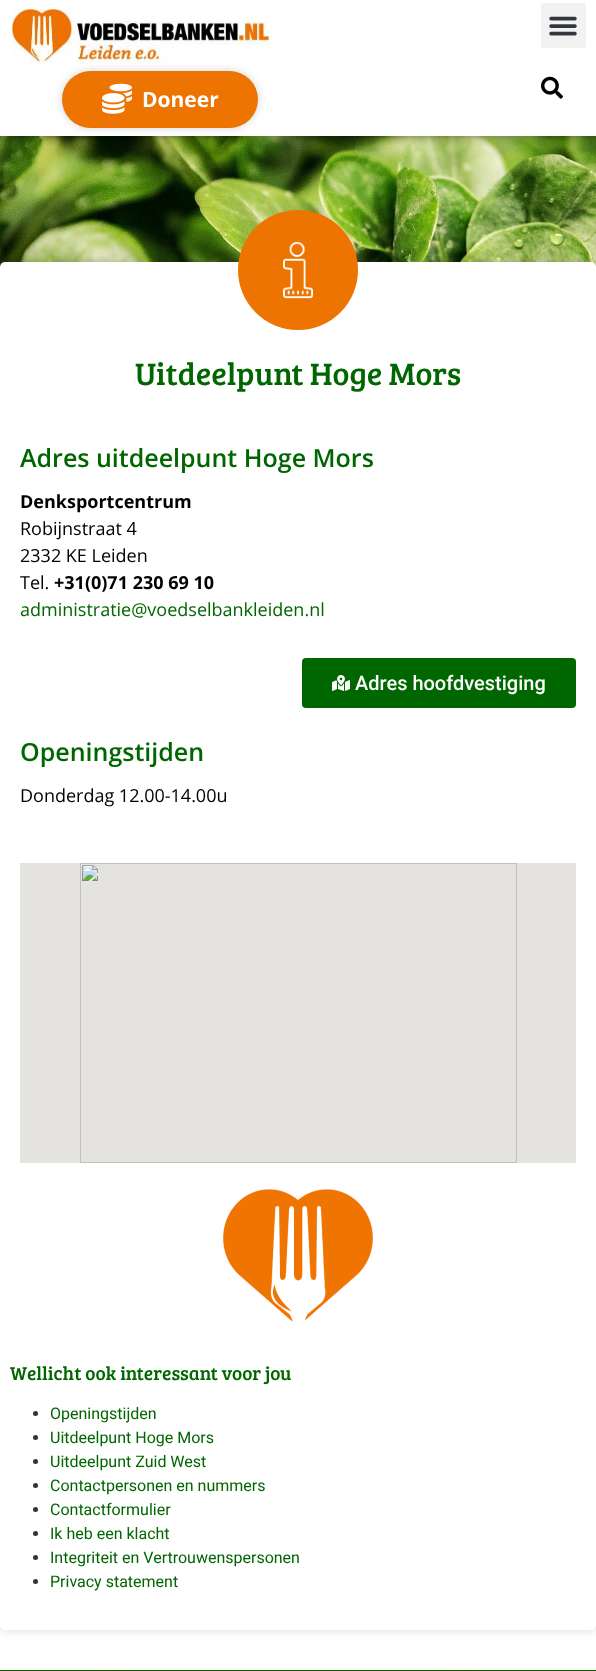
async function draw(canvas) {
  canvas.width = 596
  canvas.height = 1671
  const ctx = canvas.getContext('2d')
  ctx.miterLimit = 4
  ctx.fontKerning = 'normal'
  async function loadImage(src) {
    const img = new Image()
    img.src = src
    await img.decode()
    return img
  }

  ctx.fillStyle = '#fff'
  ctx.fillRect(0, 0, 596, 1671)
  ctx.drawImage(await loadImage('image4.png'), 0, 136, 596, 131)
  ctx.save()
  ctx.beginPath()
  ctx.rect(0, 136, 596, 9)
  ctx.clip()
  ctx.fillStyle = '#00000080'
  ctx.filter = 'blur(5px)'
  ctx.beginPath()
  ctx.rect(0, 0, 596, 136)
  ctx.fill()
  ctx.filter = 'none'
  ctx.restore()
  ctx.drawImage(await loadImage('image0.png'), 12, 9, 257, 55)
  ctx.fillStyle = '#f2f2f2'
  ctx.beginPath()
  ctx.roundRect(541, 3, 45, 45, 3)
  ctx.fill()
  ctx.drawImage(await loadImage('image1.png'), 549, 16, 28, 20)
  ctx.fillStyle = '#00000029'
  ctx.filter = 'blur(5px)'
  ctx.beginPath()
  ctx.roundRect(62, 71, 196, 57, 28.5)
  ctx.fill()
  ctx.filter = 'none'
  ctx.fillStyle = '#ee7402'
  ctx.beginPath()
  ctx.roundRect(62, 71, 196, 57, 28.5)
  ctx.fill()
  ctx.drawImage(await loadImage('image2.png'), 102, 83, 30, 31)
  ctx.font = 'bold 21px Open Sans'
  ctx.fillStyle = '#fff'
  ctx.fillText('Doneer', 142, 107)
  ctx.drawImage(await loadImage('image3.png'), 541, 76, 22, 23)
  ctx.fillStyle = '#00000029'
  ctx.filter = 'blur(5px)'
  ctx.beginPath()
  ctx.roundRect(0, 262, 596, 1368, 5)
  ctx.fill()
  ctx.filter = 'none'
  ctx.fillStyle = '#fff'
  ctx.beginPath()
  ctx.roundRect(0, 262, 596, 1368, 5)
  ctx.fill()
  ctx.fillStyle = '#ee7402'
  ctx.beginPath()
  ctx.arc(298, 270, 60, 0, 2 * Math.PI)
  ctx.fill()
  ctx.drawImage(await loadImage('image5.png'), 283, 241, 30, 58)
  ctx.font = '32px Bree Serif'
  ctx.fillStyle = '#060'
  ctx.fillText('Uitdeelpunt Hoge Mors', 135, 385)
  ctx.font = '600 25px Open Sans'
  ctx.fillText('Adres uitdeelpunt Hoge Mors', 20, 467)
  ctx.font = 'bold 18px Open Sans'
  ctx.fillStyle = '#020000'
  ctx.fillText('Denksportcentrum', 20, 508)
  ctx.font = '18px Open Sans'
  ctx.fillText('Robijnstraat 4', 20, 535)
  ctx.fillText('2332 KE Leiden', 20, 562)
  ctx.fillText('Tel.', 20, 589)
  ctx.font = 'bold 18px Open Sans'
  ctx.fillText('+31(0)71 230 69 10', 54, 589)
  ctx.font = '18px Open Sans'
  ctx.fillStyle = '#060'
  ctx.fillText('administratie@voedselbankleiden.nl', 20, 616)
  ctx.beginPath()
  ctx.roundRect(302, 658, 274, 50, 4)
  ctx.fill()
  ctx.drawImage(await loadImage('image6.png'), 332, 675, 18, 16)
  ctx.font = '500 20px Roboto'
  ctx.fillStyle = '#fff'
  ctx.fillText('Adres hoofdvestiging', 355, 690)
  ctx.font = '600 25px Open Sans'
  ctx.fillStyle = '#060'
  ctx.fillText('Openingstijden', 20, 761)
  ctx.font = '18px Open Sans'
  ctx.fillStyle = '#020000'
  ctx.fillText('Donderdag 12.00-14.00u', 20, 802)
  ctx.drawImage(await loadImage('image7.png'), 20, 863, 556, 300)
  ctx.drawImage(await loadImage('image8.png'), 223, 1189, 150, 133)
  ctx.font = '19.25px Bree Serif'
  ctx.fillStyle = '#060'
  ctx.fillText('Wellicht ook interessant voor jou', 10, 1380)
  ctx.fillStyle = '#333'
  ctx.beginPath()
  ctx.arc(35.5, 1413.5, 2.5, 0, 2 * Math.PI)
  ctx.fill()
  ctx.font = '16px Roboto'
  ctx.fillStyle = '#060'
  ctx.fillText('Openingstijden', 50, 1419)
  ctx.fillStyle = '#333'
  ctx.beginPath()
  ctx.arc(35.5, 1437.5, 2.5, 0, 2 * Math.PI)
  ctx.fill()
  ctx.fillStyle = '#060'
  ctx.fillText('Uitdeelpunt Hoge Mors', 50, 1443)
  ctx.fillStyle = '#333'
  ctx.beginPath()
  ctx.arc(35.5, 1461.5, 2.5, 0, 2 * Math.PI)
  ctx.fill()
  ctx.fillStyle = '#060'
  ctx.fillText('Uitdeelpunt Zuid West', 50, 1467)
  ctx.fillStyle = '#333'
  ctx.beginPath()
  ctx.arc(35.5, 1485.5, 2.5, 0, 2 * Math.PI)
  ctx.fill()
  ctx.fillStyle = '#060'
  ctx.fillText('Contactpersonen en nummers', 50, 1491)
  ctx.fillStyle = '#333'
  ctx.beginPath()
  ctx.arc(35.5, 1509.5, 2.5, 0, 2 * Math.PI)
  ctx.fill()
  ctx.fillStyle = '#060'
  ctx.fillText('Contactformulier', 50, 1515)
  ctx.fillStyle = '#333'
  ctx.beginPath()
  ctx.arc(35.5, 1533.5, 2.5, 0, 2 * Math.PI)
  ctx.fill()
  ctx.fillStyle = '#060'
  ctx.fillText('Ik heb een klacht', 50, 1539)
  ctx.fillStyle = '#333'
  ctx.beginPath()
  ctx.arc(35.5, 1557.5, 2.5, 0, 2 * Math.PI)
  ctx.fill()
  ctx.fillStyle = '#060'
  ctx.fillText('Integriteit en Vertrouwenspersonen', 50, 1563)
  ctx.fillStyle = '#333'
  ctx.beginPath()
  ctx.arc(35.5, 1581.5, 2.5, 0, 2 * Math.PI)
  ctx.fill()
  ctx.fillStyle = '#060'
  ctx.fillText('Privacy statement', 50, 1587)
  ctx.fillStyle = '#1a5900'
  ctx.fillRect(0, 1670, 596, 1)
  ctx.drawImage(await loadImage('image9.png'), 88, 1670, 412, 1)
}

draw(document.querySelector('canvas'))
